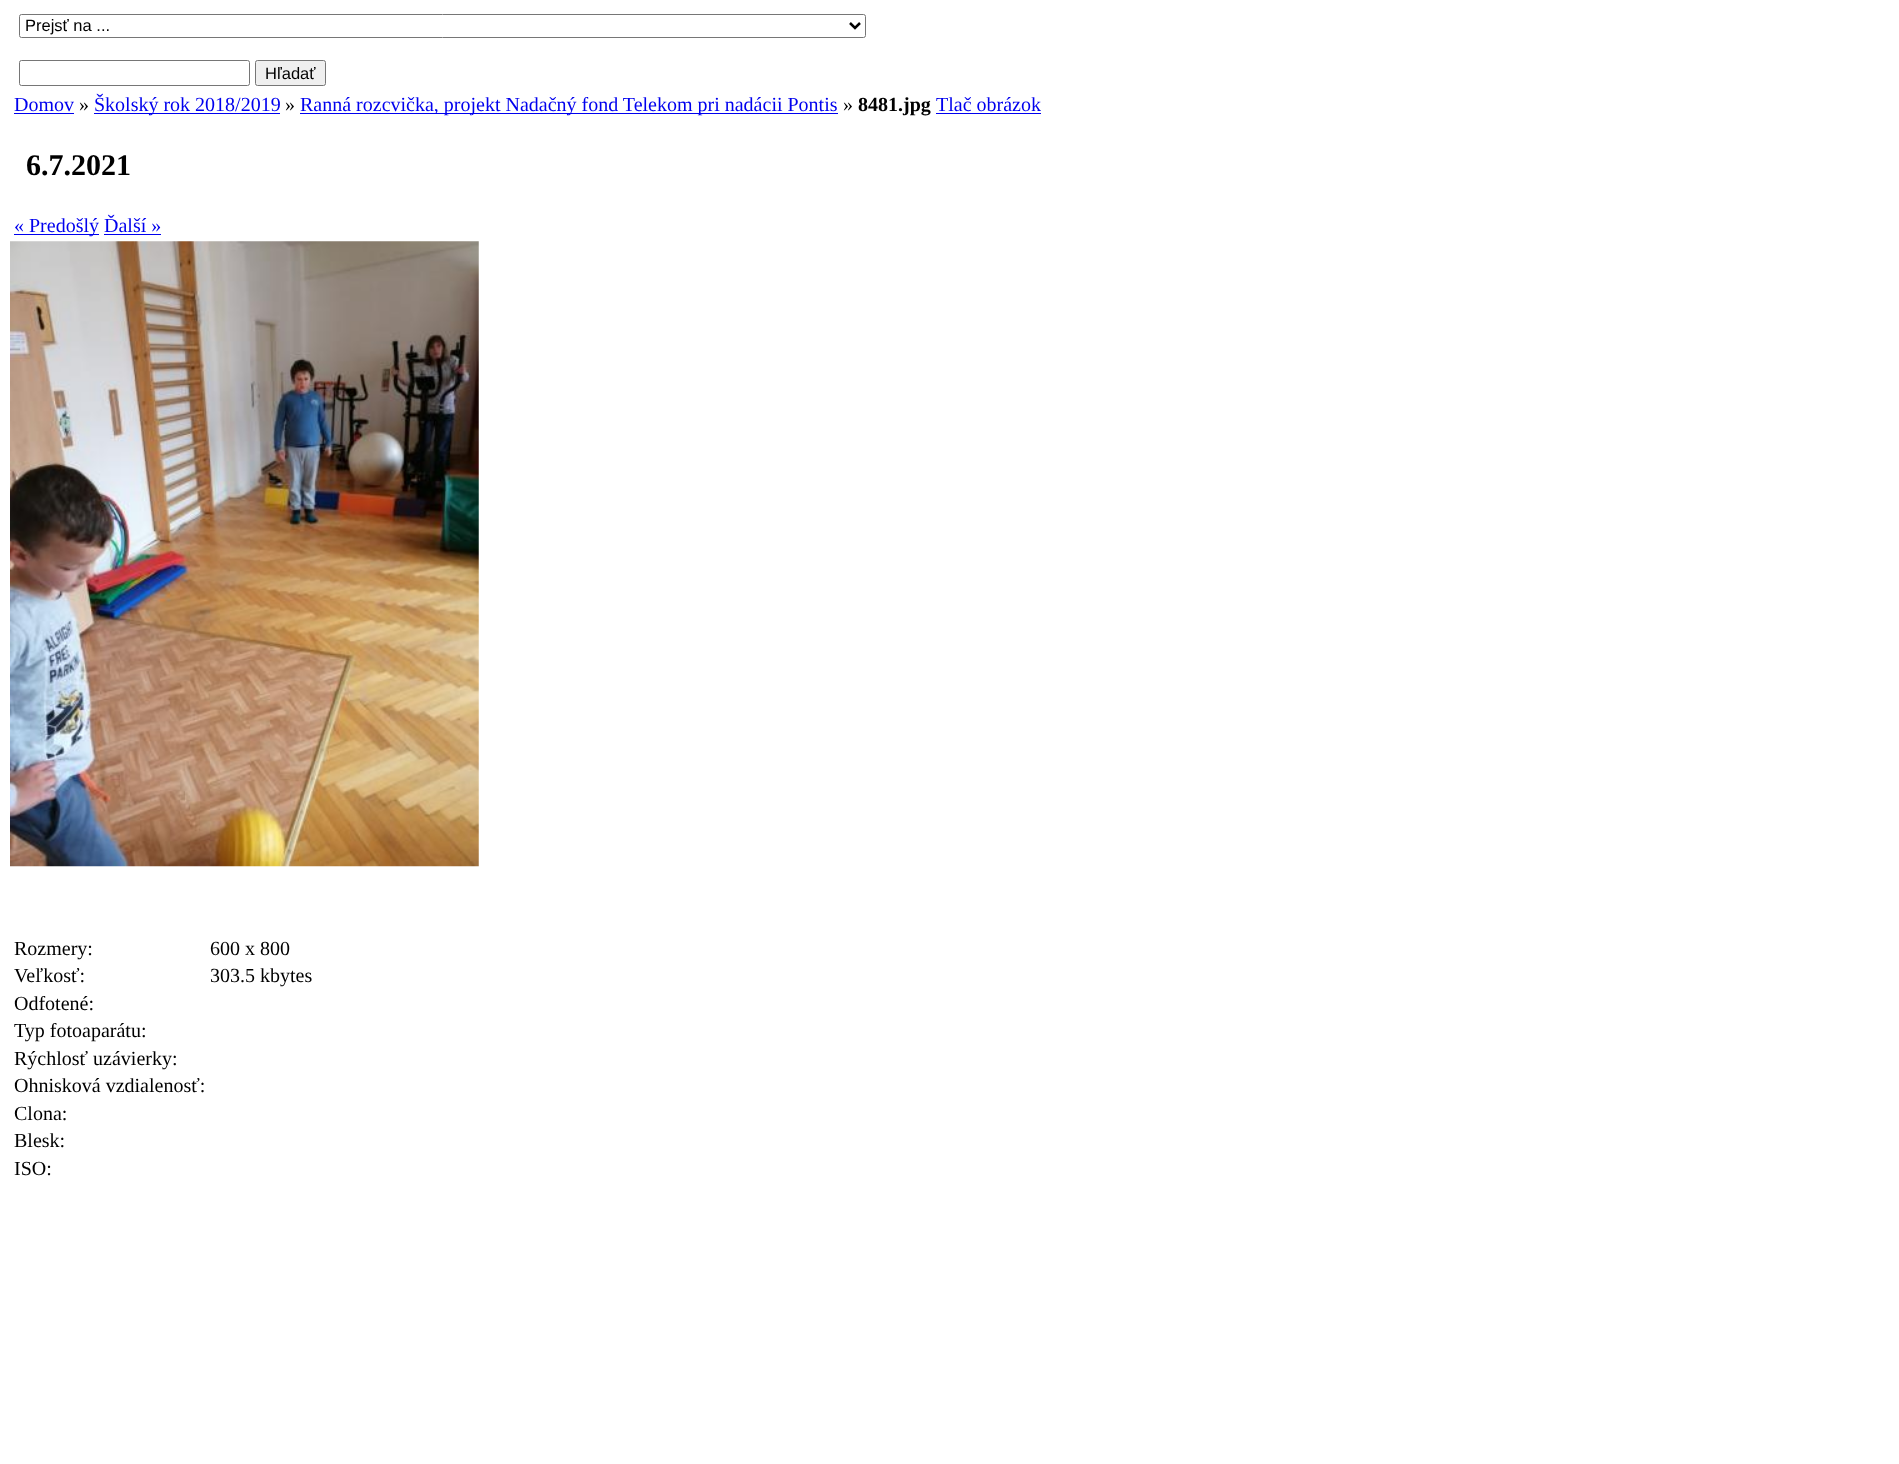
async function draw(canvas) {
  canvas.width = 1899
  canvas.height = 1464
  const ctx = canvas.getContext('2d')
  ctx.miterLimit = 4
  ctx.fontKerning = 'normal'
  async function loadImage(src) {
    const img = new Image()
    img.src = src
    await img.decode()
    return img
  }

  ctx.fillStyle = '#fff'
  ctx.fillRect(0, 0, 1899, 1464)
  ctx.beginPath()
  ctx.roundRect(19.5, 14.5, 846, 23, 2)
  ctx.strokeStyle = '#767676'
  ctx.stroke()
  ctx.beginPath()
  ctx.moveTo(850, 23)
  ctx.lineTo(855, 28)
  ctx.lineTo(860, 23)
  ctx.strokeStyle = '#000'
  ctx.lineWidth = 2.5
  ctx.stroke()
  ctx.font = '16.5px Liberation Sans'
  ctx.fillStyle = '#000'
  ctx.fillText('Prejsť na ...', 25, 31)
  ctx.beginPath()
  ctx.roundRect(19.5, 60.5, 230, 25, 2)
  ctx.strokeStyle = '#767676'
  ctx.lineWidth = 1
  ctx.stroke()
  ctx.fillStyle = '#efefef'
  ctx.beginPath()
  ctx.roundRect(255.5, 60.5, 70, 25, 2)
  ctx.fill()
  ctx.stroke()
  ctx.fillStyle = '#000'
  ctx.fillText('Hľadať', 265, 79)
  ctx.font = '20px Liberation Serif'
  ctx.fillStyle = '#00e'
  ctx.fillText('Domov', 14, 111)
  ctx.fillRect(14, 113, 60, 1)
  ctx.fillStyle = '#000'
  ctx.fillText('»', 79, 111)
  ctx.fillStyle = '#00e'
  ctx.fillRect(94, 113, 186, 1)
  ctx.fillText('Školský rok 2018/2019', 94, 111)
  ctx.fillStyle = '#000'
  ctx.fillText('»', 285, 111)
  ctx.fillStyle = '#00e'
  ctx.fillRect(300, 113, 538, 1)
  ctx.fillText('Ranná rozcvička, projekt Nadačný fond Telekom pri nadácii Pontis', 300, 111)
  ctx.fillStyle = '#000'
  ctx.fillText('»', 843, 111)
  ctx.font = 'bold 20px Liberation Serif'
  ctx.fillText('8481.jpg', 858, 111)
  ctx.font = '20px Liberation Serif'
  ctx.fillStyle = '#00e'
  ctx.fillText('Tlač obrázok', 936, 111)
  ctx.fillRect(936, 113, 105, 1)
  ctx.font = 'bold 30px Liberation Serif'
  ctx.fillStyle = '#000'
  ctx.fillText('6.7.2021', 26, 175)
  ctx.fillStyle = '#00e'
  ctx.fillRect(14, 234, 85, 1)
  ctx.font = '20px Liberation Serif'
  ctx.fillText('« Predošlý Ďalší »', 14, 232)
  ctx.fillRect(104, 234, 57, 1)
  ctx.drawImage(await loadImage('image0.png'), 10, 241, 469, 626)
  ctx.fillStyle = '#000'
  ctx.fillText('Rozmery:', 14, 955)
  ctx.fillText('600 x 800', 210, 955)
  ctx.fillText('Veľkosť:', 14, 982)
  ctx.fillText('303.5 kbytes', 210, 982)
  ctx.fillText('Odfotené:', 14, 1010)
  ctx.fillText('Typ fotoaparátu:', 14, 1037)
  ctx.fillText('Rýchlosť uzávierky:', 14, 1065)
  ctx.fillText('Ohnisková vzdialenosť:', 14, 1092)
  ctx.fillText('Clona:', 14, 1120)
  ctx.fillText('Blesk:', 14, 1147)
  ctx.fillText('ISO:', 14, 1175)
}

draw(document.querySelector('canvas'))
